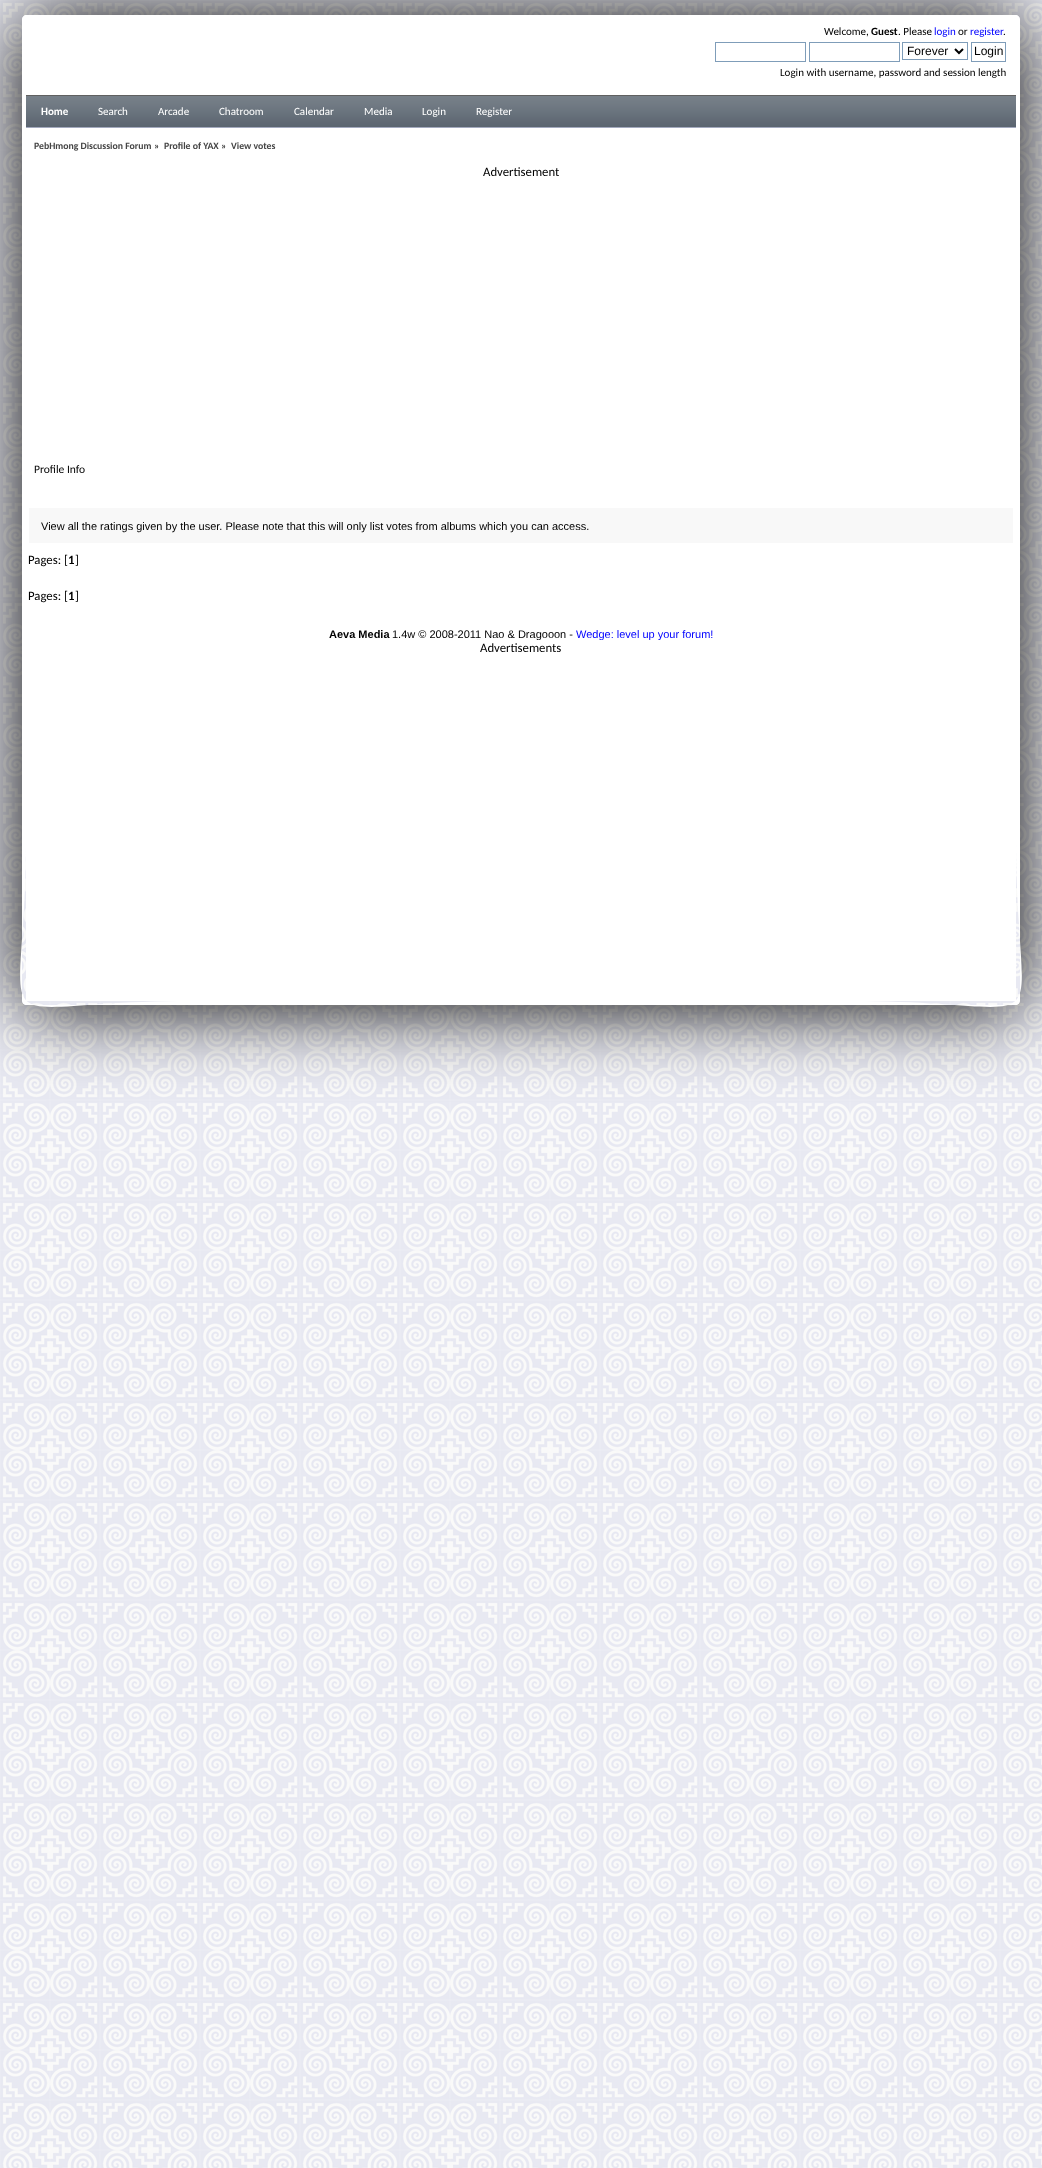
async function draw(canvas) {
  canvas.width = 1042
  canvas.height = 2168
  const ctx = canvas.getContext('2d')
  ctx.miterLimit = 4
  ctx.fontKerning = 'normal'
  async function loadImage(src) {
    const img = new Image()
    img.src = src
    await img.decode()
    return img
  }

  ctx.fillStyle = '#fff'
  ctx.fillRect(0, 0, 1042, 2168)
  ctx.drawImage(await loadImage('image0.png'), 0, 0, 1042, 2168)
  ctx.save()
  ctx.beginPath()
  ctx.moveTo(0, 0)
  ctx.lineTo(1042, 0)
  ctx.lineTo(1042, 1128)
  ctx.lineTo(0, 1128)
  ctx.closePath()
  ctx.moveTo(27, 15)
  ctx.lineTo(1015, 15)
  ctx.bezierCurveTo(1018, 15, 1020, 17, 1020, 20)
  ctx.lineTo(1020, 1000)
  ctx.bezierCurveTo(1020, 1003, 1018, 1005, 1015, 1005)
  ctx.lineTo(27, 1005)
  ctx.bezierCurveTo(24, 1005, 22, 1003, 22, 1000)
  ctx.lineTo(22, 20)
  ctx.bezierCurveTo(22, 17, 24, 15, 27, 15)
  ctx.closePath()
  ctx.clip('evenodd')
  ctx.fillStyle = '#000'
  ctx.filter = 'blur(40px)'
  ctx.beginPath()
  ctx.roundRect(22, 17, 998, 990, 5)
  ctx.fill()
  ctx.filter = 'none'
  ctx.restore()
  ctx.beginPath()
  ctx.moveTo(27, 15)
  ctx.lineTo(1015, 15)
  ctx.bezierCurveTo(1018, 15, 1020, 17, 1020, 20)
  ctx.lineTo(1020, 1000)
  ctx.bezierCurveTo(1020, 1003, 1018, 1005, 1015, 1005)
  ctx.lineTo(27, 1005)
  ctx.bezierCurveTo(24, 1005, 22, 1003, 22, 1000)
  ctx.lineTo(22, 20)
  ctx.bezierCurveTo(22, 17, 24, 15, 27, 15)
  ctx.closePath()
  ctx.moveTo(27, 15)
  ctx.lineTo(1015, 15)
  ctx.lineTo(1016, 18)
  ctx.lineTo(1016, 837)
  ctx.bezierCurveTo(1016, 1055, 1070, 1001, 850, 1001)
  ctx.lineTo(192, 1001)
  ctx.bezierCurveTo(-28, 1001, 26, 1055, 26, 837)
  ctx.lineTo(26, 20)
  ctx.bezierCurveTo(26, 19, 26, 15, 27, 15)
  ctx.closePath()
  ctx.fill('evenodd')
  ctx.fillRect(26, 15, 990, 80)
  ctx.font = '11px Carlito'
  ctx.fillStyle = '#000'
  ctx.fillText('Welcome,', 824, 35)
  ctx.font = 'bold 11px Carlito'
  ctx.fillText('Guest', 871, 35)
  ctx.font = '11px Carlito'
  ctx.fillText('. Please', 898, 35)
  ctx.fillStyle = '#00f'
  ctx.fillText('login', 934, 35)
  ctx.fillStyle = '#000'
  ctx.fillText('or', 958, 35)
  ctx.fillStyle = '#00f'
  ctx.fillText('register', 970, 35)
  ctx.fillStyle = '#000'
  ctx.fillText('.', 1003, 35)
  ctx.strokeStyle = '#7f9db9'
  ctx.strokeRect(715.5, 42.5, 90, 19)
  ctx.strokeRect(809.5, 42.5, 90, 19)
  ctx.strokeRect(902.5, 42.5, 65, 17)
  ctx.beginPath()
  ctx.moveTo(955, 49)
  ctx.lineTo(959, 53)
  ctx.lineTo(963, 49)
  ctx.strokeStyle = '#000'
  ctx.lineWidth = 2
  ctx.stroke()
  ctx.font = '12px Liberation Sans'
  ctx.fillText('Forever', 907, 55)
  ctx.strokeStyle = '#7f9db9'
  ctx.lineWidth = 1
  ctx.strokeRect(971.5, 42.5, 34, 19)
  ctx.fillText('Login', 974, 55)
  ctx.font = '11px Carlito'
  ctx.fillText('Login with username, password and session length', 780, 76)
  ctx.drawImage(await loadImage('image1.png'), 26, 96, 990, 31)
  ctx.fillStyle = '#606060'
  ctx.fillRect(26, 95, 990, 1)
  ctx.font = 'bold 11px Carlito'
  ctx.fillStyle = '#fff'
  ctx.fillText('Home', 41, 115)
  ctx.font = '11px Carlito'
  ctx.fillText('Search', 98, 115)
  ctx.fillText('Arcade', 158, 115)
  ctx.fillText('Chatroom', 219, 115)
  ctx.fillText('Calendar', 294, 115)
  ctx.fillText('Media', 364, 115)
  ctx.fillText('Login', 422, 115)
  ctx.fillText('Register', 476, 115)
  ctx.fillRect(26, 128, 990, 873)
  ctx.fillStyle = '#a3a9be'
  ctx.fillRect(26, 127, 990, 1)
  ctx.font = 'bold 9.75px Carlito'
  ctx.fillStyle = '#454545'
  ctx.fillText('PebHmong Discussion Forum', 34, 149)
  ctx.font = '9.75px Carlito'
  ctx.fillStyle = '#000'
  ctx.fillText('»', 154, 149)
  ctx.font = 'bold 9.75px Carlito'
  ctx.fillStyle = '#454545'
  ctx.fillText('Profile of YAX', 164, 149)
  ctx.font = '9.75px Carlito'
  ctx.fillStyle = '#000'
  ctx.fillText('»', 221, 149)
  ctx.font = 'bold 9.75px Carlito'
  ctx.fillStyle = '#454545'
  ctx.fillText('View votes', 231, 149)
  ctx.font = '12.75px Carlito'
  ctx.fillStyle = '#000'
  ctx.fillText('Advertisement', 483, 176)
  ctx.font = '11.5px Carlito'
  ctx.fillText('Profile Info', 34, 473)
  ctx.fillStyle = '#f8f8f8'
  ctx.fillRect(29, 508, 984, 35)
  ctx.font = '11px Liberation Sans'
  ctx.fillStyle = '#000'
  ctx.fillText('View all the ratings given by the user. Please note that this will only list votes from albums which you can access.', 41, 530)
  ctx.font = '12.75px Carlito'
  ctx.fillText('Pages: [', 28, 564)
  ctx.font = 'bold 12.75px Carlito'
  ctx.fillText('1', 68, 564)
  ctx.font = '12.75px Carlito'
  ctx.fillText(']', 75, 564)
  ctx.fillText('Pages: [', 28, 600)
  ctx.font = 'bold 12.75px Carlito'
  ctx.fillText('1', 68, 600)
  ctx.font = '12.75px Carlito'
  ctx.fillText(']', 75, 600)
  ctx.font = 'bold 11px Liberation Sans'
  ctx.fillText('Aeva Media', 329, 638)
  ctx.save()
  ctx.beginPath()
  ctx.rect(28, 485, 986, 155)
  ctx.clip()
  ctx.font = '11px Liberation Sans'
  ctx.fillText('1.4w © 2008-2011 Nao & Dragooon -', 392, 638)
  ctx.fillStyle = '#00f'
  ctx.fillText('Wedge: level up your forum!', 576, 638)
  ctx.restore()
  ctx.font = '12.75px Carlito'
  ctx.fillText('Advertisements', 480, 652)
}

draw(document.querySelector('canvas'))
